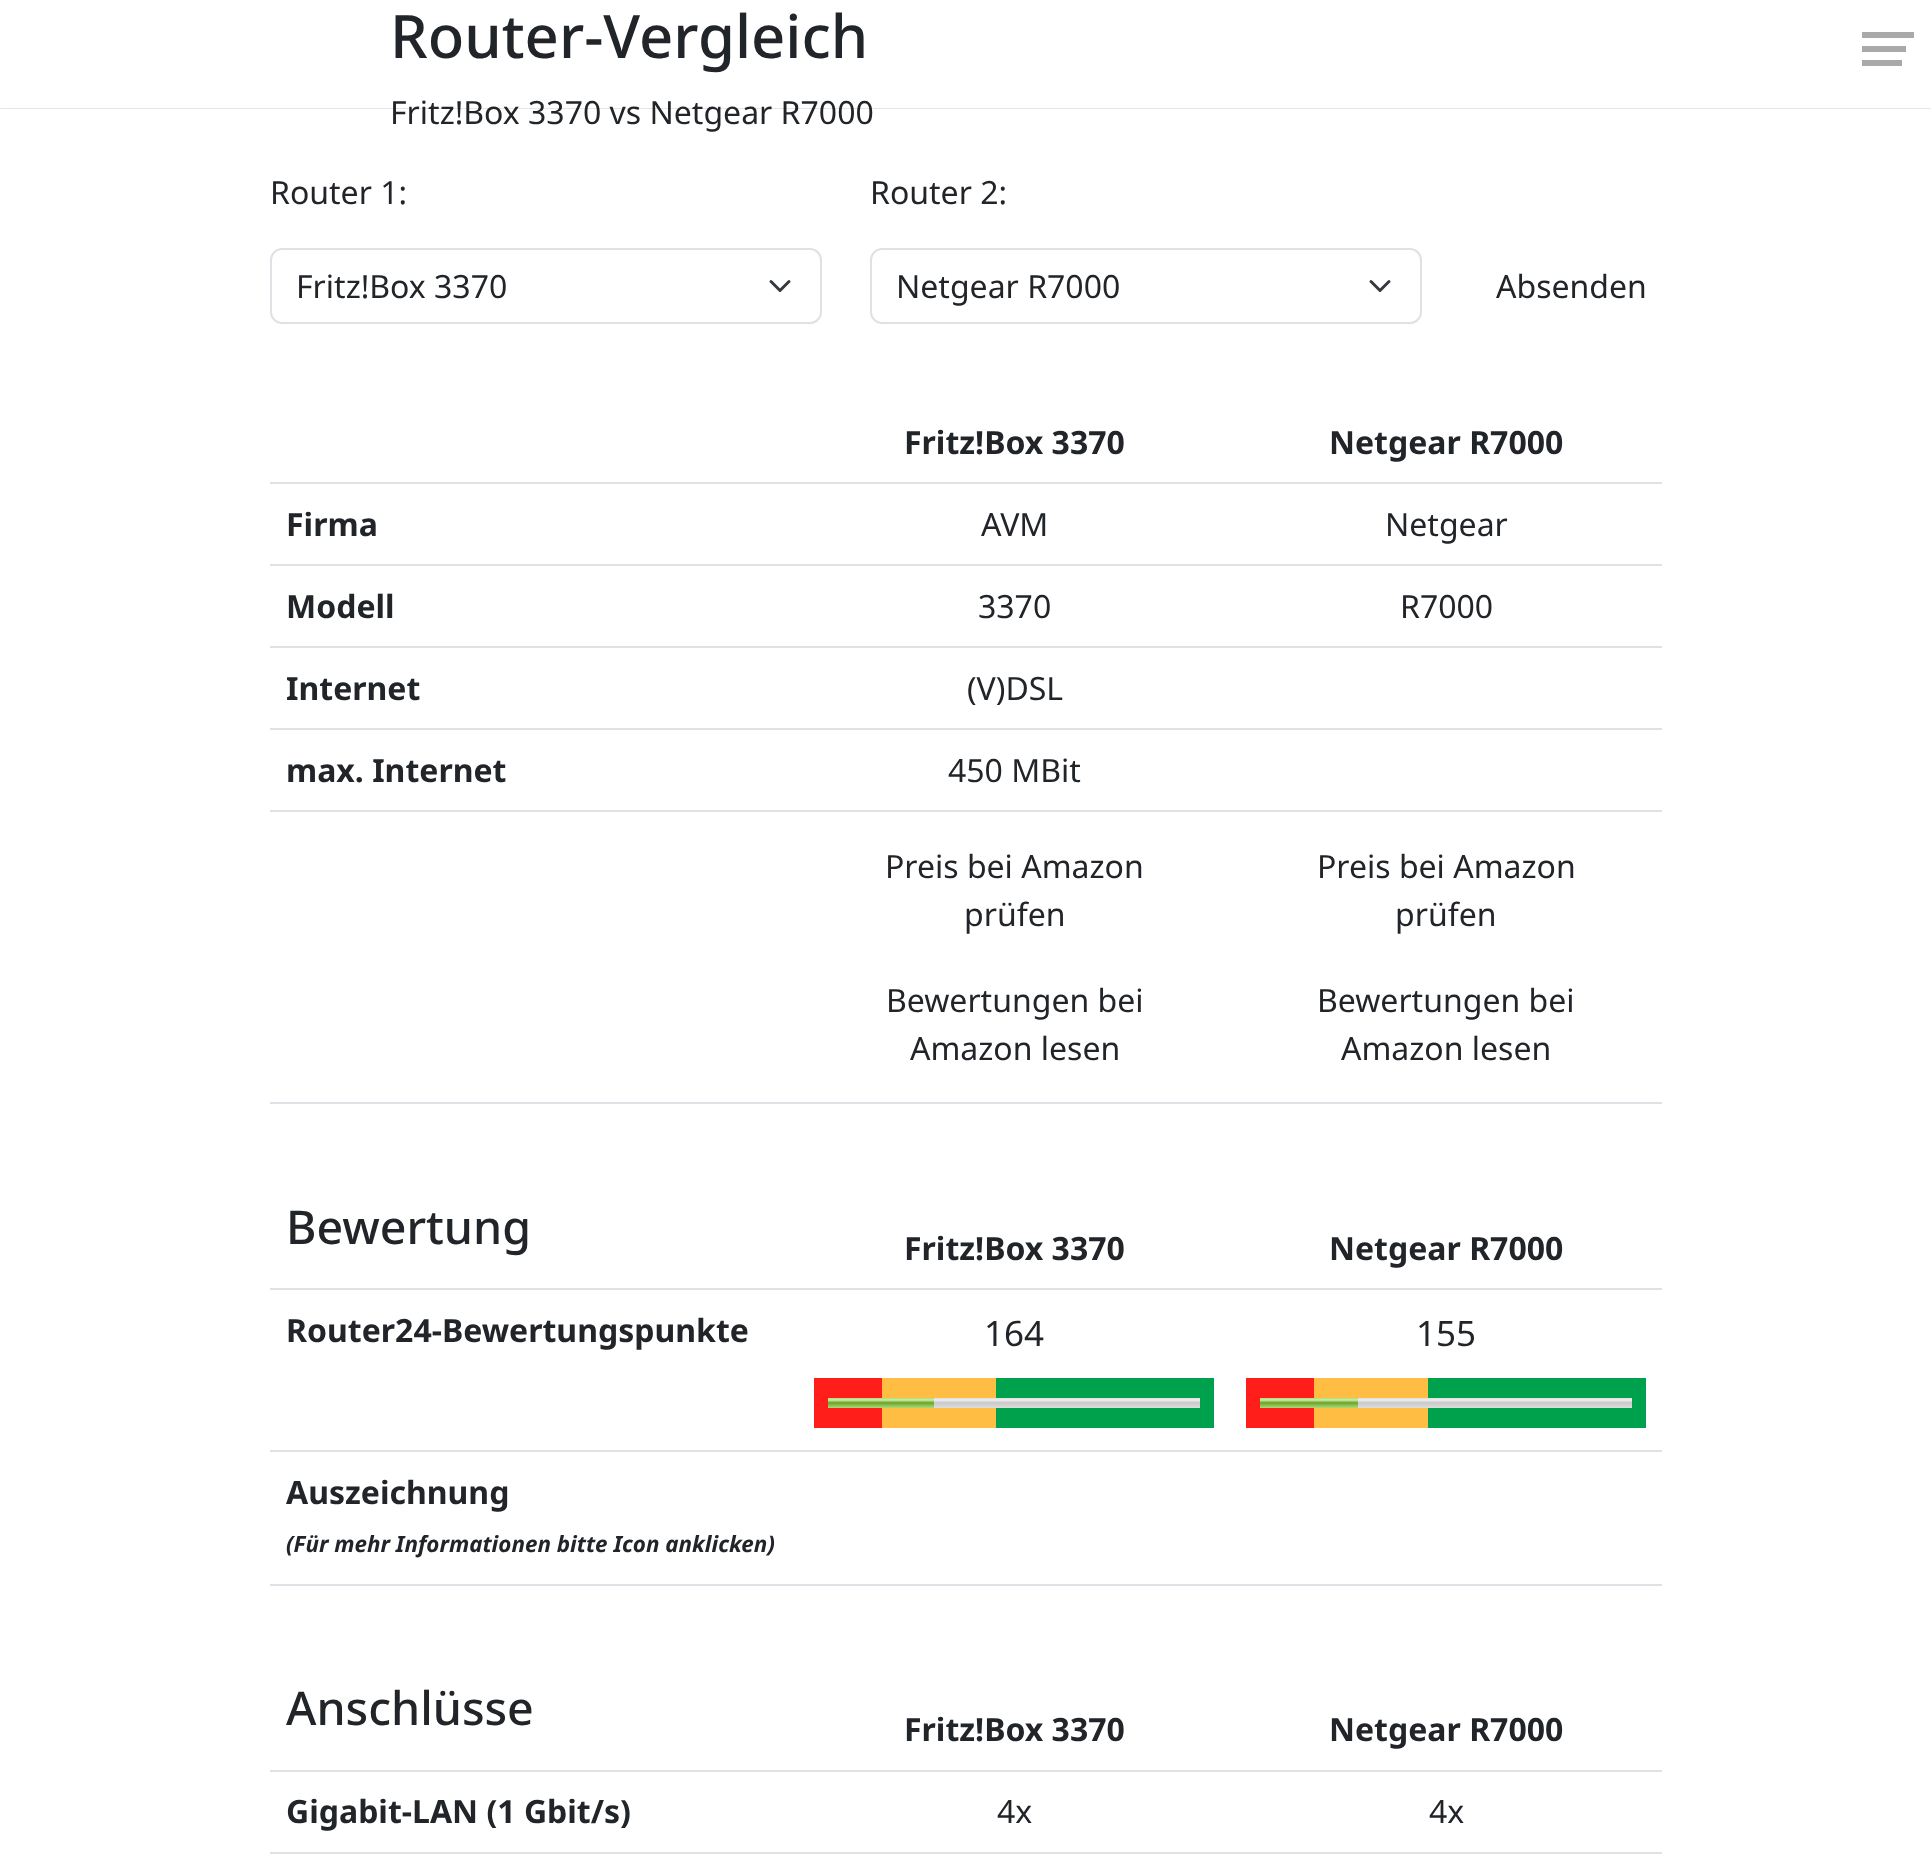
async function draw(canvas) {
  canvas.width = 1931
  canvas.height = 1869
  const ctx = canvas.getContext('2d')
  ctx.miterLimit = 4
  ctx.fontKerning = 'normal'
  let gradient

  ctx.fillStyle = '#fff'
  ctx.fillRect(0, 0, 1931, 1869)
  ctx.save()
  ctx.beginPath()
  ctx.rect(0, 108, 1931, 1)
  ctx.clip()
  ctx.fillStyle = '#0000004d'
  ctx.filter = 'blur(1px)'
  ctx.beginPath()
  ctx.rect(0, 0, 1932, 108)
  ctx.fill()
  ctx.filter = 'none'
  ctx.restore()
  ctx.fillStyle = '#a9a9a9'
  ctx.fillRect(1862, 46, 44, 6)
  ctx.fillRect(1862, 32, 52, 6)
  ctx.fillRect(1862, 60, 40, 6)
  ctx.font = '500 59.75px Noto Sans'
  ctx.fillStyle = '#212529'
  ctx.fillText('Router-Vergleich', 390, 58)
  ctx.font = '32px Noto Sans'
  ctx.fillText('Fritz!Box 3370 vs Netgear R7000', 390, 124)
  ctx.fillText('Router 1:', 270, 204)
  ctx.beginPath()
  ctx.moveTo(771, 281.5)
  ctx.lineTo(780, 290.5)
  ctx.lineTo(789, 281.5)
  ctx.strokeStyle = '#343a40'
  ctx.lineWidth = 3
  ctx.lineCap = 'round'
  ctx.lineJoin = 'round'
  ctx.stroke()
  ctx.beginPath()
  ctx.roundRect(271, 249, 550, 74, 11)
  ctx.strokeStyle = '#dee2e6'
  ctx.lineWidth = 2
  ctx.lineJoin = 'miter'
  ctx.stroke()
  ctx.fillText('Fritz!Box 3370', 296, 298)
  ctx.fillText('Router 2:', 870, 204)
  ctx.beginPath()
  ctx.moveTo(1371, 281.5)
  ctx.lineTo(1380, 290.5)
  ctx.lineTo(1389, 281.5)
  ctx.strokeStyle = '#343a40'
  ctx.lineWidth = 3
  ctx.lineJoin = 'round'
  ctx.stroke()
  ctx.beginPath()
  ctx.roundRect(871, 249, 550, 74, 11)
  ctx.strokeStyle = '#dee2e6'
  ctx.lineWidth = 2
  ctx.lineJoin = 'miter'
  ctx.stroke()
  ctx.fillText('Netgear R7000', 896, 298)
  ctx.fillText('Absenden', 1496, 298)
  ctx.font = 'bold 32px Noto Sans'
  ctx.fillText('Fritz!Box 3370', 904, 454)
  ctx.fillStyle = '#dee2e6'
  ctx.fillRect(270, 482, 1392, 2)
  ctx.fillStyle = '#212529'
  ctx.fillText('Netgear R7000', 1329, 454)
  ctx.fillText('Firma', 286, 536)
  ctx.font = '32px Noto Sans'
  ctx.fillText('AVM', 981, 536)
  ctx.fillStyle = '#dee2e6'
  ctx.fillRect(270, 564, 1392, 2)
  ctx.fillStyle = '#212529'
  ctx.fillText('Netgear', 1385, 536)
  ctx.font = 'bold 32px Noto Sans'
  ctx.fillText('Modell', 286, 618)
  ctx.font = '32px Noto Sans'
  ctx.fillText('3370', 978, 618)
  ctx.fillStyle = '#dee2e6'
  ctx.fillRect(270, 646, 1392, 2)
  ctx.fillStyle = '#212529'
  ctx.fillText('R7000', 1400, 618)
  ctx.font = 'bold 32px Noto Sans'
  ctx.fillText('Internet', 286, 700)
  ctx.font = '32px Noto Sans'
  ctx.fillText('(V)DSL', 967, 700)
  ctx.fillStyle = '#dee2e6'
  ctx.fillRect(270, 728, 1392, 2)
  ctx.font = 'bold 32px Noto Sans'
  ctx.fillStyle = '#212529'
  ctx.fillText('max. Internet', 286, 782)
  ctx.font = '32px Noto Sans'
  ctx.fillText('450 MBit', 948, 782)
  ctx.fillStyle = '#dee2e6'
  ctx.fillRect(270, 810, 1392, 2)
  ctx.fillStyle = '#212529'
  ctx.fillText('Preis bei Amazon', 885, 878)
  ctx.fillText('prüfen', 964, 926)
  ctx.fillText('Bewertungen bei', 886, 1012)
  ctx.fillText('Amazon lesen', 910, 1060)
  ctx.fillStyle = '#dee2e6'
  ctx.fillRect(270, 1102, 1392, 2)
  ctx.fillStyle = '#212529'
  ctx.fillText('Preis bei Amazon', 1317, 878)
  ctx.fillText('prüfen', 1395, 926)
  ctx.fillText('Bewertungen bei', 1317, 1012)
  ctx.fillText('Amazon lesen', 1341, 1060)
  ctx.font = '500 46.5px Noto Sans'
  ctx.fillText('Bewertung', 286, 1244)
  ctx.font = 'bold 32px Noto Sans'
  ctx.fillText('Fritz!Box 3370', 904, 1260)
  ctx.fillStyle = '#dee2e6'
  ctx.fillRect(270, 1288, 1392, 2)
  ctx.fillStyle = '#212529'
  ctx.fillText('Netgear R7000', 1329, 1260)
  ctx.fillText('Router24-Bewertungspunkte', 286, 1342)
  ctx.font = '35px Noto Sans'
  ctx.fillText('164', 984, 1346)
  ctx.fillStyle = '#ff1e19'
  ctx.fillRect(814, 1378, 68, 50)
  ctx.fillStyle = '#ffbd44'
  ctx.fillRect(882, 1378, 114, 50)
  ctx.fillStyle = '#00a14d'
  ctx.fillRect(996, 1378, 218, 50)
  gradient = ctx.createLinearGradient(1014, 1398, 1014, 1408)
  gradient.addColorStop(0, '#ddd')
  gradient.addColorStop(0.2, '#eee')
  gradient.addColorStop(0.45, '#ccc')
  gradient.addColorStop(0.55, '#ccc')
  gradient.addColorStop(1, '#ddd')
  ctx.fillStyle = gradient
  ctx.fillRect(934, 1398, 266, 10)
  gradient = ctx.createLinearGradient(881, 1398, 881, 1408)
  gradient.addColorStop(0, '#ad7')
  gradient.addColorStop(0.2, '#cea')
  gradient.addColorStop(0.45, '#7a3')
  gradient.addColorStop(0.55, '#7a3')
  gradient.addColorStop(1, '#ad7')
  ctx.fillStyle = gradient
  ctx.fillRect(828, 1398, 106, 10)
  ctx.fillStyle = '#dee2e6'
  ctx.fillRect(270, 1450, 1392, 2)
  ctx.fillStyle = '#212529'
  ctx.fillText('155', 1416, 1346)
  ctx.fillStyle = '#ff1e19'
  ctx.fillRect(1246, 1378, 68, 50)
  ctx.fillStyle = '#ffbd44'
  ctx.fillRect(1314, 1378, 114, 50)
  ctx.fillStyle = '#00a14d'
  ctx.fillRect(1428, 1378, 218, 50)
  gradient = ctx.createLinearGradient(1446, 1398, 1446, 1408)
  gradient.addColorStop(0, '#ddd')
  gradient.addColorStop(0.2, '#eee')
  gradient.addColorStop(0.45, '#ccc')
  gradient.addColorStop(0.55, '#ccc')
  gradient.addColorStop(1, '#ddd')
  ctx.fillStyle = gradient
  ctx.fillRect(1358, 1398, 274, 10)
  gradient = ctx.createLinearGradient(1309, 1398, 1309, 1408)
  gradient.addColorStop(0, '#ad7')
  gradient.addColorStop(0.2, '#cea')
  gradient.addColorStop(0.45, '#7a3')
  gradient.addColorStop(0.55, '#7a3')
  gradient.addColorStop(1, '#ad7')
  ctx.fillStyle = gradient
  ctx.fillRect(1260, 1398, 98, 10)
  ctx.font = 'bold 32px Noto Sans'
  ctx.fillStyle = '#212529'
  ctx.fillText('Auszeichnung', 286, 1504)
  ctx.font = 'italic bold 22.4px Noto Sans'
  ctx.fillText('(Für mehr Informationen bitte Icon anklicken)', 286, 1552)
  ctx.fillStyle = '#dee2e6'
  ctx.fillRect(270, 1584, 1392, 2)
  ctx.font = '500 46.5px Noto Sans'
  ctx.fillStyle = '#212529'
  ctx.fillText('Anschlüsse', 286, 1725)
  ctx.font = 'bold 32px Noto Sans'
  ctx.fillText('Fritz!Box 3370', 904, 1741)
  ctx.fillStyle = '#dee2e6'
  ctx.fillRect(270, 1770, 1392, 2)
  ctx.fillStyle = '#212529'
  ctx.fillText('Netgear R7000', 1329, 1741)
  ctx.fillText('Gigabit-LAN (1 Gbit/s)', 286, 1823)
  ctx.font = '32px Noto Sans'
  ctx.fillText('4x', 997, 1823)
  ctx.fillStyle = '#dee2e6'
  ctx.fillRect(270, 1852, 1392, 2)
  ctx.fillStyle = '#212529'
  ctx.fillText('4x', 1429, 1823)
}

draw(document.querySelector('canvas'))
